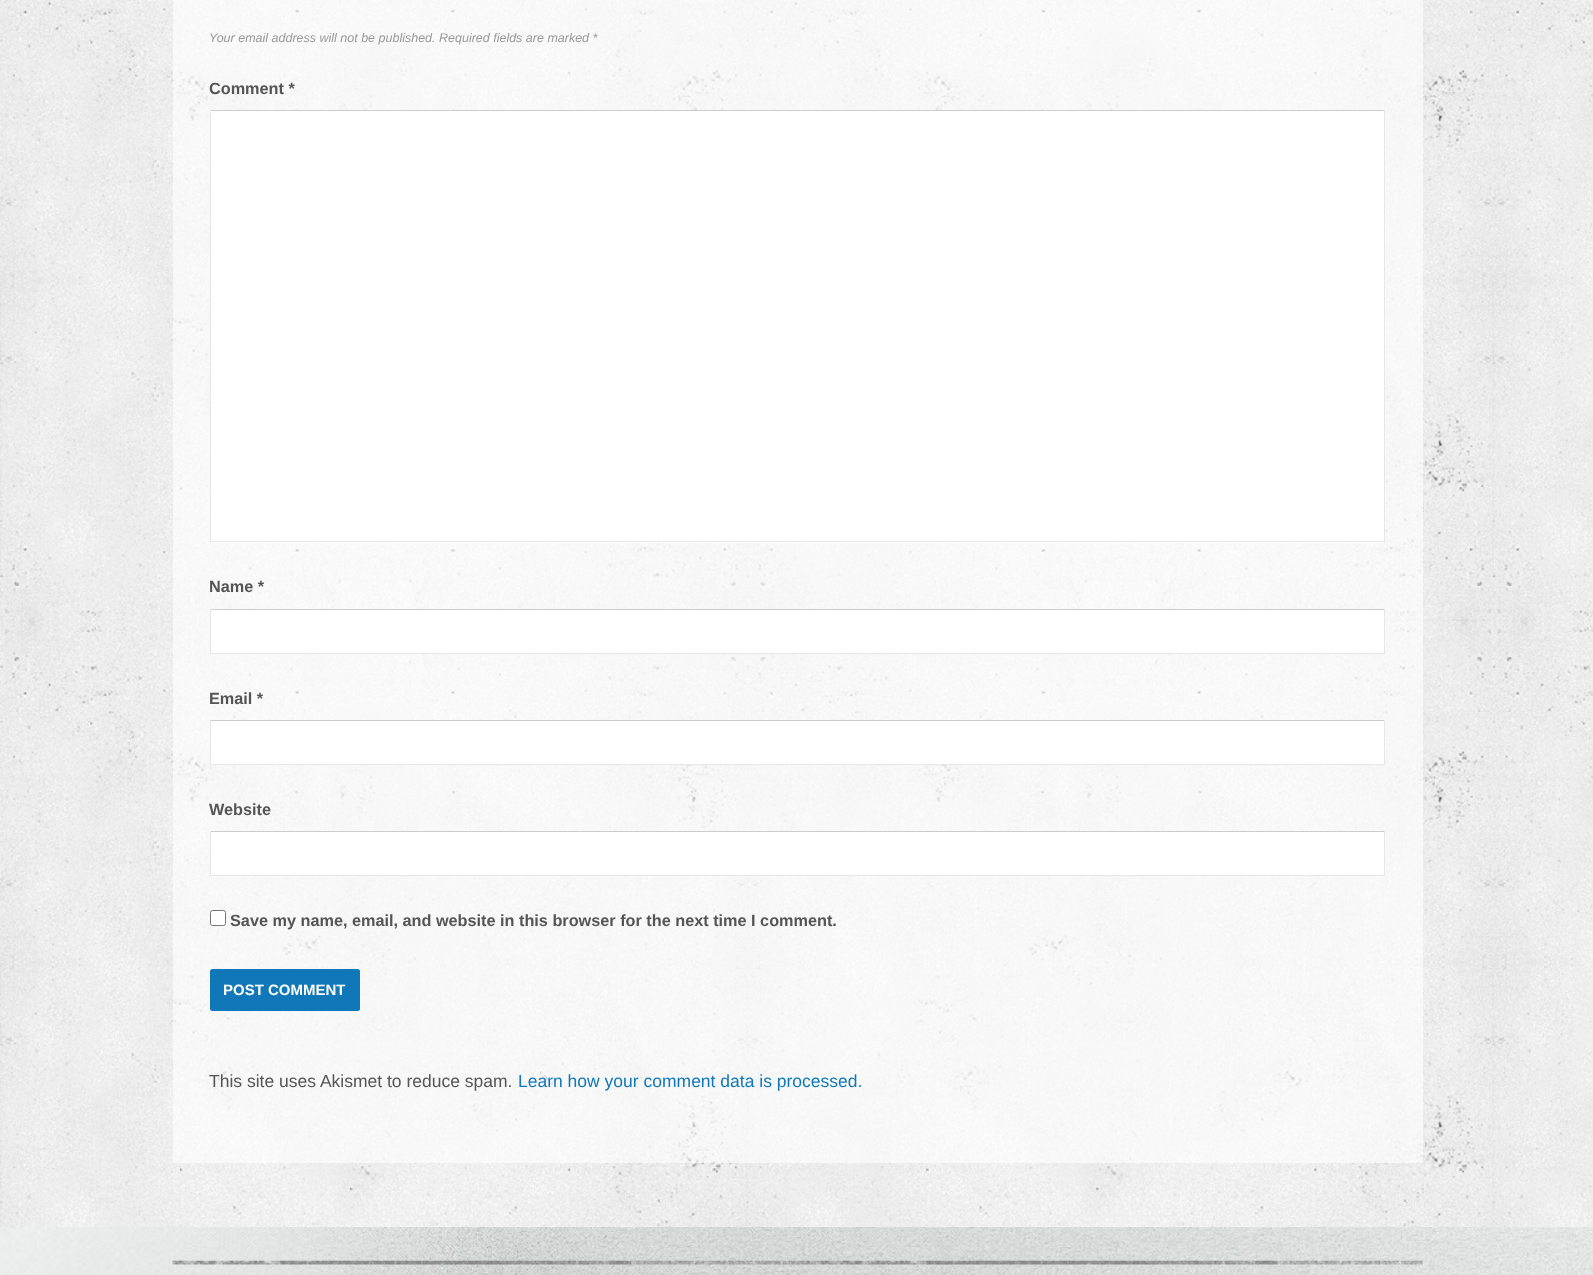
async function draw(canvas) {
  canvas.width = 1593
  canvas.height = 1275
  const ctx = canvas.getContext('2d')
  ctx.miterLimit = 4
  ctx.fontKerning = 'normal'
  async function loadImage(src) {
    const img = new Image()
    img.src = src
    await img.decode()
    return img
  }

  ctx.fillStyle = '#fff'
  ctx.fillRect(0, 0, 1593, 1275)
  ctx.drawImage(await loadImage('image0.png'), 0, 0, 1593, 1227)
  ctx.fillStyle = '#ffffff99'
  ctx.fillRect(173, 0, 1250, 1163)
  ctx.font = 'italic 12.5px Liberation Sans'
  ctx.fillStyle = '#999'
  ctx.fillText('Your email address will not be published. Required fields are marked *', 209, 42)
  ctx.font = 'bold 16.25px Liberation Sans'
  ctx.fillStyle = '#555'
  ctx.fillText('Comment *', 209, 94)
  ctx.fillStyle = '#fff'
  ctx.fillRect(211, 111, 1173, 432)
  ctx.fillStyle = '#ccc'
  ctx.fillRect(210, 110, 1175, 1)
  ctx.fillStyle = '#e7e7e7'
  ctx.fillRect(1384, 110, 1, 433)
  ctx.fillRect(210, 541, 1175, 1)
  ctx.fillRect(210, 110, 1, 433)
  ctx.fillStyle = '#555'
  ctx.fillText('Name *', 209, 592)
  ctx.fillStyle = '#fff'
  ctx.fillRect(211, 610, 1173, 43)
  ctx.fillStyle = '#ccc'
  ctx.fillRect(210, 609, 1175, 1)
  ctx.fillStyle = '#e7e7e7'
  ctx.fillRect(1384, 609, 1, 45)
  ctx.fillRect(210, 653, 1175, 1)
  ctx.fillRect(210, 609, 1, 45)
  ctx.fillStyle = '#555'
  ctx.fillText('Email *', 209, 704)
  ctx.fillStyle = '#fff'
  ctx.fillRect(211, 721, 1173, 43)
  ctx.fillStyle = '#ccc'
  ctx.fillRect(210, 720, 1175, 1)
  ctx.fillStyle = '#e7e7e7'
  ctx.fillRect(1384, 720, 1, 45)
  ctx.fillRect(210, 764, 1175, 1)
  ctx.fillRect(210, 720, 1, 45)
  ctx.fillStyle = '#555'
  ctx.fillText('Website', 209, 815)
  ctx.fillStyle = '#fff'
  ctx.fillRect(211, 832, 1173, 43)
  ctx.fillStyle = '#ccc'
  ctx.fillRect(210, 831, 1175, 1)
  ctx.fillStyle = '#e7e7e7'
  ctx.fillRect(1384, 831, 1, 45)
  ctx.fillRect(210, 875, 1175, 1)
  ctx.fillRect(210, 831, 1, 45)
  ctx.fillStyle = '#fff'
  ctx.beginPath()
  ctx.roundRect(210.5, 910.5, 15, 15, 2)
  ctx.fill()
  ctx.strokeStyle = '#767676'
  ctx.stroke()
  ctx.fillStyle = '#555'
  ctx.fillText('Save my name, email, and website in this browser for the next time I comment.', 230, 926)
  ctx.fillStyle = '#1078b9'
  ctx.beginPath()
  ctx.roundRect(210, 969, 150, 42, 2.5)
  ctx.fill()
  ctx.font = 'bold 15px Liberation Sans'
  ctx.fillStyle = '#fff'
  ctx.fillText('POST COMMENT', 223, 995)
  ctx.font = '17.5px Liberation Sans'
  ctx.fillStyle = '#555'
  ctx.fillText('This site uses Akismet to reduce spam.', 209, 1087)
  ctx.fillStyle = '#1078b9'
  ctx.fillText('Learn how your comment data is processed.', 518, 1087)
  ctx.drawImage(await loadImage('image1.png'), 0, 1227, 1593, 48)
  ctx.drawImage(await loadImage('image2.png'), 172, 1260, 1251, 5)
}

draw(document.querySelector('canvas'))
